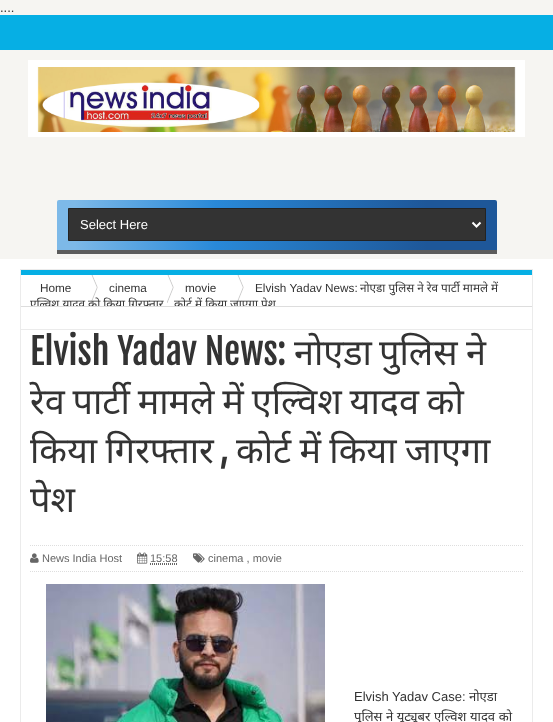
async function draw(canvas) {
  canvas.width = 553
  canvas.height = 722
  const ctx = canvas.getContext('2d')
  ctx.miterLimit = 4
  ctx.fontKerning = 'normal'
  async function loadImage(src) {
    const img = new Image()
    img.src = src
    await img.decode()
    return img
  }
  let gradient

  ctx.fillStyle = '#f6f5f2'
  ctx.fillRect(0, 0, 553, 722)
  ctx.font = '13px Liberation Sans'
  ctx.fillStyle = '#333'
  ctx.fillText('....', 0, 12)
  ctx.fillStyle = '#06afe4'
  ctx.fillRect(0, 15, 553, 35)
  ctx.drawImage(await loadImage('image0.png'), 28, 60, 497, 77)
  gradient = ctx.createLinearGradient(57, 225, 497, 225)
  gradient.addColorStop(0.04, '#7db9e8')
  gradient.addColorStop(0.36, '#2989d8')
  gradient.addColorStop(0.84, '#1e5799')
  ctx.fillStyle = gradient
  ctx.beginPath()
  ctx.roundRect(57, 200, 440, 54, [2, 2, 0, 0])
  ctx.fill()
  ctx.fillStyle = '#5c5c5c'
  ctx.fillRect(57, 250, 440, 4)
  ctx.fillStyle = '#333'
  ctx.beginPath()
  ctx.rect(68.5, 208.5, 417, 32)
  ctx.fill()
  ctx.strokeStyle = '#232323'
  ctx.stroke()
  ctx.beginPath()
  ctx.moveTo(472.5, 222.5)
  ctx.lineTo(476.5, 226.5)
  ctx.lineTo(480.5, 222.5)
  ctx.strokeStyle = '#fff'
  ctx.lineWidth = 2
  ctx.stroke()
  ctx.fillStyle = '#fff'
  ctx.fillText('Select Here', 80, 229)
  ctx.fillRect(0, 259, 553, 463)
  ctx.fillStyle = '#ddd'
  ctx.fillRect(21, 306, 511, 1)
  ctx.drawImage(await loadImage('image1.png'), 91, 275, 7, 28)
  ctx.drawImage(await loadImage('image1.png'), 167, 275, 7, 28)
  ctx.drawImage(await loadImage('image1.png'), 237, 275, 7, 28)
  ctx.wordSpacing = '-1.5px'
  ctx.font = '36px Noto Sans'
  ctx.fillStyle = '#333'
  ctx.fillText('रेव पार्टी मामले में एल्विश यादव को', 30, 414)
  ctx.wordSpacing = '0px'
  ctx.fillText('पेश', 30, 512)
  ctx.beginPath()
  ctx.moveTo(30, 545.5)
  ctx.lineTo(523, 545.5)
  ctx.strokeStyle = '#dedede'
  ctx.lineWidth = 1
  ctx.setLineDash([1, 1])
  ctx.stroke()
  ctx.beginPath()
  ctx.moveTo(30, 571.5)
  ctx.lineTo(523, 571.5)
  ctx.stroke()
  ctx.drawImage(await loadImage('image2.png'), 30, 553, 9, 10)
  ctx.drawImage(await loadImage('image3.png'), 137, 552, 11, 12)
  ctx.beginPath()
  ctx.moveTo(150, 564.5)
  ctx.lineTo(178, 564.5)
  ctx.moveTo(150, 563.5)
  ctx.lineTo(177.5, 563.5)
  ctx.strokeStyle = '#666'
  ctx.stroke()
  ctx.drawImage(await loadImage('image4.png'), 193, 553, 12, 10)
  ctx.drawImage(await loadImage('image5.png'), 46, 584, 279, 138)
  ctx.strokeStyle = '#ebebeb'
  ctx.setLineDash([])
  ctx.strokeRect(20.5, 269.5, 512, 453)
  ctx.fillStyle = '#06afe4'
  ctx.fillRect(21, 270, 511, 5)
  ctx.fillStyle = '#ebebeb'
  ctx.fillRect(21, 329, 511, 1)
  ctx.font = '11.75px Liberation Sans'
  ctx.fillStyle = '#333'
  ctx.fillText('Home', 40, 292)
  ctx.fillText('cinema', 109, 292)
  ctx.fillText('movie', 185, 292)
  ctx.fillText('Elvish Yadav News:', 255, 292)
  ctx.font = '11.75px Noto Sans'
  ctx.fillText('नोएडा पुलिस ने रेव पार्टी मामले में', 360, 292)
  ctx.save()
  ctx.beginPath()
  ctx.moveTo(22, 270)
  ctx.lineTo(531, 270)
  ctx.bezierCurveTo(532, 270, 533, 270.5, 533, 271)
  ctx.lineTo(533, 305)
  ctx.bezierCurveTo(533, 305.5, 532, 306, 531, 306)
  ctx.lineTo(22, 306)
  ctx.bezierCurveTo(21, 306, 20, 305.5, 20, 305)
  ctx.lineTo(20, 271)
  ctx.bezierCurveTo(20, 270.5, 21, 270, 22, 270)
  ctx.closePath()
  ctx.clip()
  ctx.fillText('एल्विश यादव को किया गिरफ्तार', 30, 308)
  ctx.fillText('कोर्ट में किया जाएगा पेश', 174, 308)
  ctx.restore()
  ctx.font = '36px Fjalla One'
  ctx.fillText('Elvish Yadav News:', 30, 365)
  ctx.font = '36px Noto Sans'
  ctx.fillText('नोएडा', 294, 365)
  ctx.fillText('पुलिस', 379, 365)
  ctx.fillText('ने', 466, 365)
  ctx.wordSpacing = '-1px'
  ctx.fillText('किया गिरफ्तार', 30, 463)
  ctx.wordSpacing = '0px'
  ctx.font = '36px Fjalla One'
  ctx.fillText(',', 220, 463)
  ctx.wordSpacing = '-1px'
  ctx.font = '36px Noto Sans'
  ctx.fillText('कोर्ट में किया जाएगा', 236, 463)
  ctx.wordSpacing = '0px'
  ctx.font = '11px Liberation Sans'
  ctx.fillStyle = '#666'
  ctx.fillText('News India Host', 42, 562)
  ctx.fillText('15:58', 150, 562)
  ctx.fillText('cinema , movie', 208, 562)
  ctx.font = '13px Liberation Sans'
  ctx.fillStyle = '#333'
  ctx.fillText('Elvish Yadav Case:', 354, 701)
  ctx.font = '13px Noto Sans'
  ctx.fillText('नोएडा', 469, 701)
  ctx.wordSpacing = '0.25px'
  ctx.fillText('पुलिस ने यूट्यूबर एल्विश यादव को', 354, 721)
}

draw(document.querySelector('canvas'))
